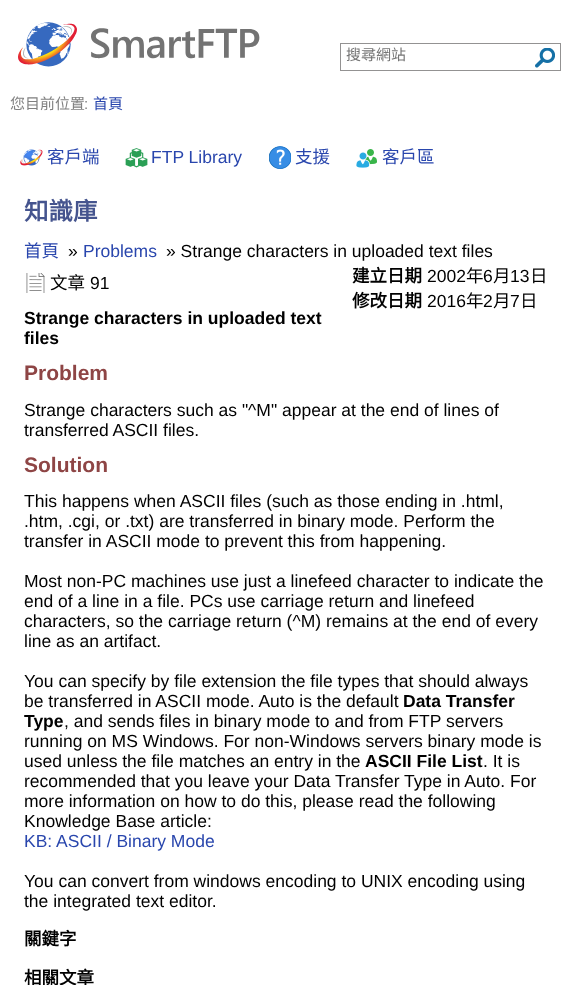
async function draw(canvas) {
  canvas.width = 571
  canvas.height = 985
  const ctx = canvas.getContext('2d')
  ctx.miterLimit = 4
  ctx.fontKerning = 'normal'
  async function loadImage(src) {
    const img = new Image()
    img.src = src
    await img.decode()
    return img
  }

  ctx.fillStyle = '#fff'
  ctx.fillRect(0, 0, 571, 985)
  ctx.drawImage(await loadImage('image0.png'), 18, 22, 242, 45)
  ctx.strokeStyle = '#939292'
  ctx.strokeRect(340.5, 43.5, 220, 27)
  ctx.font = '15px Noto Sans CJK TC'
  ctx.fillStyle = '#757575'
  ctx.fillText('搜尋網站', 346, 60)
  ctx.drawImage(await loadImage('image1.png'), 535, 48, 20, 20)
  ctx.fillStyle = '#808080'
  ctx.fillText('您目前位置', 10, 109)
  ctx.font = '15px Liberation Sans'
  ctx.fillText(':', 84, 109)
  ctx.font = '15px Noto Sans CJK TC'
  ctx.fillStyle = '#2946ad'
  ctx.fillText('首頁', 93, 109)
  ctx.drawImage(await loadImage('image2.png'), 20, 149, 23, 17)
  ctx.font = '17.5px Noto Sans CJK TC'
  ctx.fillText('客戶端', 47, 163)
  ctx.drawImage(await loadImage('image3.png'), 125, 148, 23, 20)
  ctx.font = '17.5px Liberation Sans'
  ctx.fillText('FTP Library', 151, 163)
  ctx.drawImage(await loadImage('image4.png'), 269, 146, 22, 23)
  ctx.font = '17.5px Noto Sans CJK TC'
  ctx.fillText('支援', 295, 163)
  ctx.drawImage(await loadImage('image5.png'), 356, 149, 21, 19)
  ctx.fillText('客戶區', 382, 163)
  ctx.font = 'bold 24.5px Noto Sans CJK TC'
  ctx.fillStyle = '#45548e'
  ctx.fillText('知識庫', 24, 220)
  ctx.font = '17.5px Noto Sans CJK TC'
  ctx.fillStyle = '#2946ad'
  ctx.fillText('首頁', 24, 257)
  ctx.font = '17.5px Liberation Sans'
  ctx.fillStyle = '#000'
  ctx.fillText('»', 68, 257)
  ctx.fillStyle = '#2946ad'
  ctx.fillText('Problems', 83, 257)
  ctx.fillStyle = '#000'
  ctx.fillText('» Strange characters in uploaded text files', 166, 257)
  ctx.drawImage(await loadImage('image6.png'), 26, 273, 19, 20)
  ctx.font = '17.5px Noto Sans CJK TC'
  ctx.fillText('文章', 50, 289)
  ctx.font = '17.5px Liberation Sans'
  ctx.fillText('91', 90, 289)
  ctx.font = 'bold 17.5px Noto Sans CJK TC'
  ctx.fillText('建立日期', 352, 282)
  ctx.font = '17.5px Liberation Sans'
  ctx.fillText('2002', 427, 282)
  ctx.font = '17.5px Noto Sans CJK TC'
  ctx.fillText('年', 466, 282)
  ctx.font = '17.5px Liberation Sans'
  ctx.fillText('6', 483, 282)
  ctx.font = '17.5px Noto Sans CJK TC'
  ctx.fillText('月', 493, 282)
  ctx.font = '17.5px Liberation Sans'
  ctx.fillText('13', 510, 282)
  ctx.font = '17.5px Noto Sans CJK TC'
  ctx.fillText('日', 530, 282)
  ctx.font = 'bold 17.5px Noto Sans CJK TC'
  ctx.fillText('修改日期', 352, 307)
  ctx.font = '17.5px Liberation Sans'
  ctx.fillText('2016', 427, 307)
  ctx.font = '17.5px Noto Sans CJK TC'
  ctx.fillText('年', 466, 307)
  ctx.font = '17.5px Liberation Sans'
  ctx.fillText('2', 483, 307)
  ctx.font = '17.5px Noto Sans CJK TC'
  ctx.fillText('月', 493, 307)
  ctx.font = '17.5px Liberation Sans'
  ctx.fillText('7', 510, 307)
  ctx.font = '17.5px Noto Sans CJK TC'
  ctx.fillText('日', 520, 307)
  ctx.font = 'bold 17.5px Liberation Sans'
  ctx.fillText('Strange characters in uploaded text', 24, 324)
  ctx.fillText('files', 24, 344)
  ctx.font = 'bold 21px Liberation Sans'
  ctx.fillStyle = '#8e4545'
  ctx.fillText('Problem', 24, 380)
  ctx.font = '17.5px Liberation Sans'
  ctx.fillStyle = '#000'
  ctx.fillText('Strange characters such as "^M" appear at the end of lines of', 24, 416)
  ctx.fillText('transferred ASCII files.', 24, 436)
  ctx.font = 'bold 21px Liberation Sans'
  ctx.fillStyle = '#8e4545'
  ctx.fillText('Solution', 24, 472)
  ctx.font = '17.5px Liberation Sans'
  ctx.fillStyle = '#000'
  ctx.fillText('This happens when ASCII files (such as those ending in .html,', 24, 507)
  ctx.fillText('.htm, .cgi, or .txt) are transferred in binary mode. Perform the', 24, 527)
  ctx.fillText('transfer in ASCII mode to prevent this from happening.', 24, 547)
  ctx.fillText('Most non-PC machines use just a linefeed character to indicate the', 24, 587)
  ctx.fillText('end of a line in a file. PCs use carriage return and linefeed', 24, 607)
  ctx.fillText('characters, so the carriage return (^M) remains at the end of every', 24, 627)
  ctx.fillText('line as an artifact.', 24, 647)
  ctx.fillText('You can specify by file extension the file types that should always', 24, 687)
  ctx.fillText('be transferred in ASCII mode. Auto is the default', 24, 707)
  ctx.font = 'bold 17.5px Liberation Sans'
  ctx.fillText('Data Transfer', 403, 707)
  ctx.fillText('Type', 24, 727)
  ctx.font = '17.5px Liberation Sans'
  ctx.fillText(', and sends files in binary mode to and from FTP servers', 64, 727)
  ctx.fillText('running on MS Windows. For non-Windows servers binary mode is', 24, 747)
  ctx.fillText('used unless the file matches an entry in the', 24, 767)
  ctx.font = 'bold 17.5px Liberation Sans'
  ctx.fillText('ASCII File List', 365, 767)
  ctx.font = '17.5px Liberation Sans'
  ctx.fillText('. It is', 483, 767)
  ctx.fillText('recommended that you leave your Data Transfer Type in Auto. For', 24, 787)
  ctx.fillText('more information on how to do this, please read the following', 24, 807)
  ctx.fillText('Knowledge Base article:', 24, 827)
  ctx.fillStyle = '#2946ad'
  ctx.fillText('KB: ASCII / Binary Mode', 24, 847)
  ctx.fillStyle = '#000'
  ctx.fillText('You can convert from windows encoding to UNIX encoding using', 24, 887)
  ctx.fillText('the integrated text editor.', 24, 907)
  ctx.font = 'bold 17.5px Noto Sans CJK TC'
  ctx.fillText('關鍵字', 24, 945)
  ctx.fillText('相關文章', 24, 984)
}

draw(document.querySelector('canvas'))
